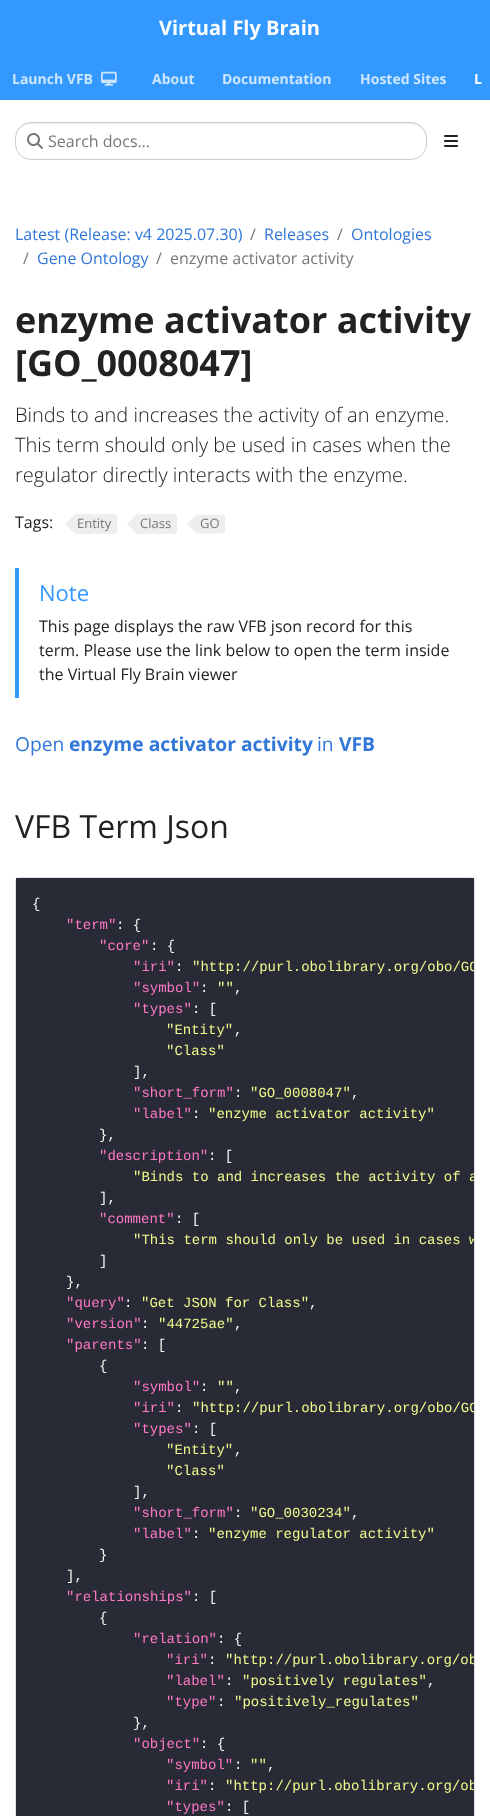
async function draw(canvas) {
  canvas.width = 490
  canvas.height = 1816
  const ctx = canvas.getContext('2d')
  ctx.miterLimit = 4
  ctx.fontKerning = 'normal'
  async function loadImage(src) {
    const img = new Image()
    img.src = src
    await img.decode()
    return img
  }

  ctx.fillStyle = '#fff'
  ctx.fillRect(0, 0, 490, 1816)
  ctx.fillStyle = '#39f'
  ctx.fillRect(0, 0, 490, 100)
  ctx.font = 'bold 20px Open Sans'
  ctx.fillStyle = '#fff'
  ctx.fillText('Virtual Fly Brain', 159, 35)
  ctx.font = 'bold 14px Open Sans'
  ctx.fillStyle = '#cce6ff'
  ctx.fillText('Launch VFB', 12, 84)
  ctx.drawImage(await loadImage('image0.png'), 101, 71, 16, 15)
  ctx.fillText('About', 152, 84)
  ctx.fillText('Documentation', 222, 84)
  ctx.fillText('Hosted Sites', 360, 84)
  ctx.fillStyle = '#fff'
  ctx.fillText('L', 474, 84)
  ctx.fillStyle = '#ececec'
  ctx.beginPath()
  ctx.moveTo(31, 124)
  ctx.lineTo(411, 124)
  ctx.bezierCurveTo(419, 124, 426, 131, 426, 139)
  ctx.lineTo(426, 138)
  ctx.bezierCurveTo(426, 130, 419, 123, 411, 123)
  ctx.lineTo(31, 123)
  ctx.bezierCurveTo(23, 123, 16, 130, 16, 138)
  ctx.lineTo(16, 139)
  ctx.bezierCurveTo(16, 131, 23, 124, 31, 124)
  ctx.closePath()
  ctx.fill()
  ctx.beginPath()
  ctx.roundRect(15.5, 122.5, 411, 37, 15.5)
  ctx.strokeStyle = '#ccc'
  ctx.stroke()
  ctx.drawImage(await loadImage('image1.png'), 27, 133, 16, 16)
  ctx.font = '16px Open Sans'
  ctx.fillStyle = '#797676'
  ctx.fillText('Search docs…', 48, 147)
  ctx.drawImage(await loadImage('image2.png'), 444, 135, 14, 12)
  ctx.fillStyle = '#3176d9'
  ctx.fillText('Latest (Release: v4 2025.07.30)', 15, 240)
  ctx.fillStyle = '#797676'
  ctx.fillText('/', 250, 240)
  ctx.fillStyle = '#3176d9'
  ctx.fillText('Releases', 264, 240)
  ctx.fillStyle = '#797676'
  ctx.fillText('/', 337, 240)
  ctx.fillStyle = '#3176d9'
  ctx.fillText('Ontologies', 351, 240)
  ctx.fillStyle = '#797676'
  ctx.fillText('/', 23, 264)
  ctx.fillStyle = '#3176d9'
  ctx.fillText('Gene Ontology', 37, 264)
  ctx.fillStyle = '#797676'
  ctx.fillText('/', 156, 264)
  ctx.fillText('enzyme activator activity', 170, 264)
  ctx.font = 'bold 36px Open Sans'
  ctx.fillStyle = '#222'
  ctx.fillText('enzyme activator activity', 15, 333)
  ctx.fillText('[GO_0008047]', 15, 376)
  ctx.font = '300 20px Open Sans'
  ctx.fillText('Binds to and increases the activity of an enzyme.', 15, 422)
  ctx.fillText('This term should only be used in cases when the', 15, 452)
  ctx.fillText('regulator directly interacts with the enzyme.', 15, 482)
  ctx.font = '16px Open Sans'
  ctx.fillText('Tags:', 15, 528)
  ctx.fillStyle = '#eee'
  ctx.beginPath()
  ctx.moveTo(65, 524)
  ctx.lineTo(75, 514)
  ctx.lineTo(102, 514)
  ctx.bezierCurveTo(119, 514, 117, 511, 117, 526)
  ctx.bezierCurveTo(117, 528, 118, 532, 116, 534)
  ctx.lineTo(75, 534)
  ctx.closePath()
  ctx.fill()
  ctx.font = '13px Open Sans'
  ctx.fillStyle = '#797676'
  ctx.fillText('Entity', 77, 528)
  ctx.fillStyle = '#eee'
  ctx.beginPath()
  ctx.moveTo(177, 531)
  ctx.lineTo(176, 534)
  ctx.lineTo(137, 534)
  ctx.lineTo(127, 524)
  ctx.lineTo(137, 514)
  ctx.lineTo(175, 514)
  ctx.bezierCurveTo(176, 515, 177, 516, 177, 517)
  ctx.closePath()
  ctx.fill()
  ctx.fillStyle = '#797676'
  ctx.fillText('Class', 140, 528)
  ctx.fillStyle = '#eee'
  ctx.beginPath()
  ctx.moveTo(187, 524.5)
  ctx.lineTo(187, 523.5)
  ctx.lineTo(197, 514.5)
  ctx.lineTo(223.5, 514.5)
  ctx.bezierCurveTo(224.5, 515, 225, 516, 225, 517)
  ctx.lineTo(225, 531)
  ctx.bezierCurveTo(225, 532, 224.5, 533, 223.5, 533.5)
  ctx.lineTo(197, 533.5)
  ctx.closePath()
  ctx.fill()
  ctx.fillStyle = '#797676'
  ctx.fillText('GO', 200, 528)
  ctx.fillStyle = '#39f'
  ctx.fillRect(15, 568, 4, 130)
  ctx.font = '22px Open Sans'
  ctx.fillText('Note', 39, 601)
  ctx.font = '16px Open Sans'
  ctx.fillStyle = '#222'
  ctx.fillText('This page displays the raw VFB json record for this', 39, 632)
  ctx.fillText('term. Please use the link below to open the term inside', 39, 656)
  ctx.fillText('the Virtual Fly Brain viewer', 39, 680)
  ctx.font = '19.25px Open Sans'
  ctx.fillStyle = '#3176d9'
  ctx.fillText('Open', 15, 751)
  ctx.font = 'bold 19.25px Open Sans'
  ctx.fillText('enzyme activator activity', 69, 751)
  ctx.font = '19.25px Open Sans'
  ctx.fillText('in', 317, 751)
  ctx.font = 'bold 19.25px Open Sans'
  ctx.fillText('VFB', 339, 751)
  ctx.font = '32px Open Sans'
  ctx.fillStyle = '#222'
  ctx.fillText('VFB Term Json', 15, 838)
  ctx.beginPath()
  ctx.roundRect(15.5, 877.5, 459, 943, 3.5)
  ctx.strokeStyle = '#dfdfdf'
  ctx.stroke()
  ctx.fillStyle = '#282a36'
  ctx.fillRect(16, 878, 458, 938)
  ctx.font = '14px Liberation Mono'
  ctx.fillStyle = '#f8f8f2'
  ctx.fillText('{', 32, 908)
  ctx.fillStyle = '#ff79c6'
  ctx.fillText('"term"', 66, 929)
  ctx.fillStyle = '#f8f8f2'
  ctx.fillText(': {', 116, 929)
  ctx.fillStyle = '#ff79c6'
  ctx.fillText('"core"', 99, 950)
  ctx.fillStyle = '#f8f8f2'
  ctx.fillText(': {', 150, 950)
  ctx.fillStyle = '#ff79c6'
  ctx.fillText('"iri"', 133, 971)
  ctx.fillStyle = '#f8f8f2'
  ctx.fillText(':', 175, 971)
  ctx.save()
  ctx.beginPath()
  ctx.rect(16, 878, 458, 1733)
  ctx.clip()
  ctx.fillStyle = '#f1fa8c'
  ctx.fillText('"http://purl.obolibrary.org/obo/GO', 192, 971)
  ctx.restore()
  ctx.fillStyle = '#ff79c6'
  ctx.fillText('"symbol"', 133, 992)
  ctx.fillStyle = '#f8f8f2'
  ctx.fillText(':', 200, 992)
  ctx.fillStyle = '#f1fa8c'
  ctx.fillText('""', 217, 992)
  ctx.fillStyle = '#f8f8f2'
  ctx.fillText(',', 234, 992)
  ctx.fillStyle = '#ff79c6'
  ctx.fillText('"types"', 133, 1013)
  ctx.fillStyle = '#f8f8f2'
  ctx.fillText(': [', 192, 1013)
  ctx.fillStyle = '#f1fa8c'
  ctx.fillText('"Entity"', 166, 1034)
  ctx.fillStyle = '#f8f8f2'
  ctx.fillText(',', 234, 1034)
  ctx.fillStyle = '#f1fa8c'
  ctx.fillText('"Class"', 166, 1055)
  ctx.fillStyle = '#f8f8f2'
  ctx.fillText('],', 133, 1076)
  ctx.fillStyle = '#ff79c6'
  ctx.fillText('"short_form"', 133, 1097)
  ctx.fillStyle = '#f8f8f2'
  ctx.fillText(':', 234, 1097)
  ctx.fillStyle = '#f1fa8c'
  ctx.fillText('"GO_0008047"', 250, 1097)
  ctx.fillStyle = '#f8f8f2'
  ctx.fillText(',', 351, 1097)
  ctx.fillStyle = '#ff79c6'
  ctx.fillText('"label"', 133, 1118)
  ctx.fillStyle = '#f8f8f2'
  ctx.fillText(':', 192, 1118)
  ctx.fillStyle = '#f1fa8c'
  ctx.fillText('"enzyme activator activity"', 208, 1118)
  ctx.fillStyle = '#f8f8f2'
  ctx.fillText('},', 99, 1139)
  ctx.fillStyle = '#ff79c6'
  ctx.fillText('"description"', 99, 1160)
  ctx.fillStyle = '#f8f8f2'
  ctx.fillText(': [', 208, 1160)
  ctx.save()
  ctx.beginPath()
  ctx.rect(16, 878, 458, 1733)
  ctx.clip()
  ctx.fillStyle = '#f1fa8c'
  ctx.fillText('"Binds to and increases the activity of a', 133, 1181)
  ctx.restore()
  ctx.fillText('],', 99, 1202)
  ctx.fillStyle = '#ff79c6'
  ctx.fillText('"comment"', 99, 1223)
  ctx.fillStyle = '#f8f8f2'
  ctx.fillText(': [', 175, 1223)
  ctx.save()
  ctx.beginPath()
  ctx.rect(16, 878, 458, 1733)
  ctx.clip()
  ctx.fillStyle = '#f1fa8c'
  ctx.fillText('"This term should only be used in cases w', 133, 1244)
  ctx.restore()
  ctx.fillText(']', 99, 1265)
  ctx.fillText('},', 66, 1286)
  ctx.fillStyle = '#ff79c6'
  ctx.fillText('"query"', 66, 1307)
  ctx.fillStyle = '#f8f8f2'
  ctx.fillText(':', 124, 1307)
  ctx.fillStyle = '#f1fa8c'
  ctx.fillText('"Get JSON for Class"', 141, 1307)
  ctx.fillStyle = '#f8f8f2'
  ctx.fillText(',', 309, 1307)
  ctx.fillStyle = '#ff79c6'
  ctx.fillText('"version"', 66, 1328)
  ctx.fillStyle = '#f8f8f2'
  ctx.fillText(':', 141, 1328)
  ctx.fillStyle = '#f1fa8c'
  ctx.fillText('"44725ae"', 158, 1328)
  ctx.fillStyle = '#f8f8f2'
  ctx.fillText(',', 234, 1328)
  ctx.fillStyle = '#ff79c6'
  ctx.fillText('"parents"', 66, 1349)
  ctx.fillStyle = '#f8f8f2'
  ctx.fillText(': [', 141, 1349)
  ctx.fillText('{', 99, 1370)
  ctx.fillStyle = '#ff79c6'
  ctx.fillText('"symbol"', 133, 1391)
  ctx.fillStyle = '#f8f8f2'
  ctx.fillText(':', 200, 1391)
  ctx.fillStyle = '#f1fa8c'
  ctx.fillText('""', 217, 1391)
  ctx.fillStyle = '#f8f8f2'
  ctx.fillText(',', 234, 1391)
  ctx.fillStyle = '#ff79c6'
  ctx.fillText('"iri"', 133, 1412)
  ctx.fillStyle = '#f8f8f2'
  ctx.fillText(':', 175, 1412)
  ctx.save()
  ctx.beginPath()
  ctx.rect(16, 878, 458, 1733)
  ctx.clip()
  ctx.fillStyle = '#f1fa8c'
  ctx.fillText('"http://purl.obolibrary.org/obo/GO', 192, 1412)
  ctx.restore()
  ctx.fillStyle = '#ff79c6'
  ctx.fillText('"types"', 133, 1433)
  ctx.fillStyle = '#f8f8f2'
  ctx.fillText(': [', 192, 1433)
  ctx.fillStyle = '#f1fa8c'
  ctx.fillText('"Entity"', 166, 1454)
  ctx.fillStyle = '#f8f8f2'
  ctx.fillText(',', 234, 1454)
  ctx.fillStyle = '#f1fa8c'
  ctx.fillText('"Class"', 166, 1475)
  ctx.fillStyle = '#f8f8f2'
  ctx.fillText('],', 133, 1496)
  ctx.fillStyle = '#ff79c6'
  ctx.fillText('"short_form"', 133, 1517)
  ctx.fillStyle = '#f8f8f2'
  ctx.fillText(':', 234, 1517)
  ctx.fillStyle = '#f1fa8c'
  ctx.fillText('"GO_0030234"', 250, 1517)
  ctx.fillStyle = '#f8f8f2'
  ctx.fillText(',', 351, 1517)
  ctx.fillStyle = '#ff79c6'
  ctx.fillText('"label"', 133, 1538)
  ctx.fillStyle = '#f8f8f2'
  ctx.fillText(':', 192, 1538)
  ctx.fillStyle = '#f1fa8c'
  ctx.fillText('"enzyme regulator activity"', 208, 1538)
  ctx.fillStyle = '#f8f8f2'
  ctx.fillText('}', 99, 1559)
  ctx.fillText('],', 66, 1580)
  ctx.fillStyle = '#ff79c6'
  ctx.fillText('"relationships"', 66, 1601)
  ctx.fillStyle = '#f8f8f2'
  ctx.fillText(': [', 192, 1601)
  ctx.fillText('{', 99, 1622)
  ctx.fillStyle = '#ff79c6'
  ctx.fillText('"relation"', 133, 1643)
  ctx.fillStyle = '#f8f8f2'
  ctx.fillText(': {', 217, 1643)
  ctx.fillStyle = '#ff79c6'
  ctx.fillText('"iri"', 166, 1664)
  ctx.fillStyle = '#f8f8f2'
  ctx.fillText(':', 208, 1664)
  ctx.save()
  ctx.beginPath()
  ctx.rect(16, 878, 458, 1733)
  ctx.clip()
  ctx.fillStyle = '#f1fa8c'
  ctx.fillText('"http://purl.obolibrary.org/ob', 225, 1664)
  ctx.restore()
  ctx.fillStyle = '#ff79c6'
  ctx.fillText('"label"', 166, 1685)
  ctx.fillStyle = '#f8f8f2'
  ctx.fillText(':', 225, 1685)
  ctx.fillStyle = '#f1fa8c'
  ctx.fillText('"positively regulates"', 242, 1685)
  ctx.fillStyle = '#f8f8f2'
  ctx.fillText(',', 427, 1685)
  ctx.fillStyle = '#ff79c6'
  ctx.fillText('"type"', 166, 1706)
  ctx.fillStyle = '#f8f8f2'
  ctx.fillText(':', 217, 1706)
  ctx.fillStyle = '#f1fa8c'
  ctx.fillText('"positively_regulates"', 234, 1706)
  ctx.fillStyle = '#f8f8f2'
  ctx.fillText('},', 133, 1727)
  ctx.fillStyle = '#ff79c6'
  ctx.fillText('"object"', 133, 1748)
  ctx.fillStyle = '#f8f8f2'
  ctx.fillText(': {', 200, 1748)
  ctx.fillStyle = '#ff79c6'
  ctx.fillText('"symbol"', 166, 1769)
  ctx.fillStyle = '#f8f8f2'
  ctx.fillText(':', 234, 1769)
  ctx.fillStyle = '#f1fa8c'
  ctx.fillText('""', 250, 1769)
  ctx.fillStyle = '#f8f8f2'
  ctx.fillText(',', 267, 1769)
  ctx.fillStyle = '#ff79c6'
  ctx.fillText('"iri"', 166, 1790)
  ctx.fillStyle = '#f8f8f2'
  ctx.fillText(':', 208, 1790)
  ctx.save()
  ctx.beginPath()
  ctx.rect(16, 878, 458, 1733)
  ctx.clip()
  ctx.fillStyle = '#f1fa8c'
  ctx.fillText('"http://purl.obolibrary.org/ob', 225, 1790)
  ctx.restore()
  ctx.fillStyle = '#ff79c6'
  ctx.fillText('"types"', 166, 1811)
  ctx.fillStyle = '#f8f8f2'
  ctx.fillText(': [', 225, 1811)
}

draw(document.querySelector('canvas'))
